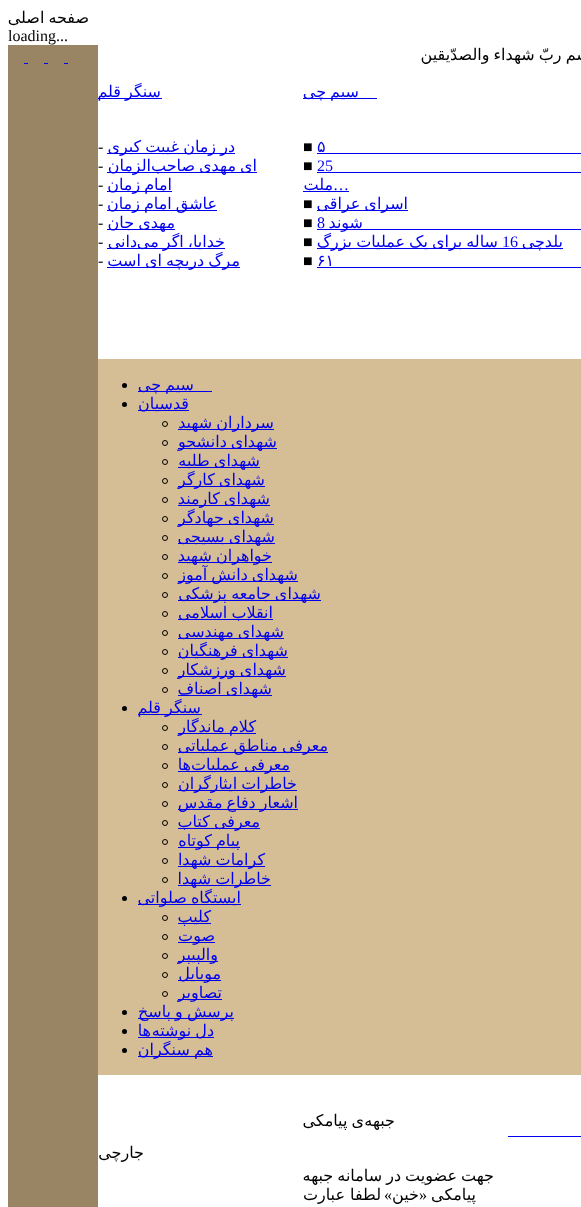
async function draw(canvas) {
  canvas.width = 581
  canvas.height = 1207
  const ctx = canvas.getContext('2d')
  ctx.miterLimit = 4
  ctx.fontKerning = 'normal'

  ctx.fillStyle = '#fff'
  ctx.fillRect(0, 0, 581, 1207)
  ctx.wordSpacing = '-1px'
  ctx.direction = 'rtl'
  ctx.font = '16px DejaVu Sans'
  ctx.fillStyle = '#000'
  ctx.fillText('صفحه اصلی', 89, 23)
  ctx.wordSpacing = '0px'
  ctx.direction = 'ltr'
  ctx.font = '16px Liberation Serif'
  ctx.fillText('loading...', 8, 41)
  ctx.wordSpacing = '-1px'
  ctx.direction = 'rtl'
  ctx.font = '16px DejaVu Sans'
  ctx.fillText('بسم ربّ شهداء والصدّیقین', 595, 60)
  ctx.fillStyle = '#00e'
  ctx.fillRect(303, 98, 74, 1)
  ctx.fillText('سیم چی', 359, 97)
  ctx.wordSpacing = '0px'
  ctx.direction = 'ltr'
  ctx.fillText('۵', 317, 152)
  ctx.fillRect(317, 153, 264, 1)
  ctx.font = '16px Liberation Serif'
  ctx.fillStyle = '#000'
  ctx.fillText('■', 303, 152)
  ctx.fillStyle = '#00e'
  ctx.fillText('25', 317, 171)
  ctx.fillRect(317, 172, 264, 1)
  ctx.fillStyle = '#000'
  ctx.fillText('■', 303, 171)
  ctx.fillStyle = '#00e'
  ctx.fillText('…', 333, 190)
  ctx.fillRect(303, 191, 46, 1)
  ctx.direction = 'rtl'
  ctx.font = '16px DejaVu Sans'
  ctx.fillText('ملت', 333, 190)
  ctx.fillRect(317, 210, 91, 1)
  ctx.wordSpacing = '-1px'
  ctx.fillText('اسرای عراقی', 408, 209)
  ctx.wordSpacing = '0px'
  ctx.direction = 'ltr'
  ctx.font = '16px Liberation Serif'
  ctx.fillStyle = '#000'
  ctx.fillText('■', 303, 209)
  ctx.fillStyle = '#00e'
  ctx.fillRect(317, 229, 264, 1)
  ctx.direction = 'rtl'
  ctx.font = '16px DejaVu Sans'
  ctx.fillText('شوند', 363, 228)
  ctx.direction = 'ltr'
  ctx.font = '16px Liberation Serif'
  ctx.fillText('8', 317, 228)
  ctx.fillStyle = '#000'
  ctx.fillText('■', 303, 228)
  ctx.fillStyle = '#00e'
  ctx.fillRect(317, 248, 246, 1)
  ctx.direction = 'rtl'
  ctx.font = '16px DejaVu Sans'
  ctx.fillText('بلدچی', 563, 247)
  ctx.direction = 'ltr'
  ctx.font = '16px Liberation Serif'
  ctx.fillText('16', 502, 247)
  ctx.wordSpacing = '-1px'
  ctx.direction = 'rtl'
  ctx.font = '16px DejaVu Sans'
  ctx.fillText('ساله برای یک عملیات بزرگ', 498, 247)
  ctx.wordSpacing = '0px'
  ctx.direction = 'ltr'
  ctx.font = '16px Liberation Serif'
  ctx.fillStyle = '#000'
  ctx.fillText('■', 303, 247)
  ctx.font = '16px DejaVu Sans'
  ctx.fillStyle = '#00e'
  ctx.fillText('۶۱', 317, 266)
  ctx.fillRect(317, 267, 264, 1)
  ctx.font = '16px Liberation Serif'
  ctx.fillStyle = '#000'
  ctx.fillText('■', 303, 266)
  ctx.fillStyle = '#00e'
  ctx.fillRect(98, 98, 64, 1)
  ctx.wordSpacing = '-1px'
  ctx.direction = 'rtl'
  ctx.font = '16px DejaVu Sans'
  ctx.fillText('سنگر قلم', 161, 97)
  ctx.fillRect(107, 153, 128, 1)
  ctx.fillText('در زمان غیبت کبری', 235, 152)
  ctx.wordSpacing = '0px'
  ctx.direction = 'ltr'
  ctx.font = '16px Liberation Serif'
  ctx.fillStyle = '#000'
  ctx.fillText('-', 98, 152)
  ctx.fillStyle = '#00e'
  ctx.fillRect(107, 172, 150, 1)
  ctx.wordSpacing = '-1px'
  ctx.direction = 'rtl'
  ctx.font = '16px DejaVu Sans'
  ctx.fillText('ای مهدی صاحب', 257, 171)
  ctx.wordSpacing = '0px'
  ctx.fillText('الزمان', 151, 171)
  ctx.direction = 'ltr'
  ctx.font = '16px Liberation Serif'
  ctx.fillStyle = '#000'
  ctx.fillText('-', 98, 171)
  ctx.fillStyle = '#00e'
  ctx.fillRect(107, 191, 65, 1)
  ctx.wordSpacing = '-1px'
  ctx.direction = 'rtl'
  ctx.font = '16px DejaVu Sans'
  ctx.fillText('امام زمان', 172, 190)
  ctx.wordSpacing = '0px'
  ctx.direction = 'ltr'
  ctx.font = '16px Liberation Serif'
  ctx.fillStyle = '#000'
  ctx.fillText('-', 98, 190)
  ctx.fillStyle = '#00e'
  ctx.fillRect(107, 210, 110, 1)
  ctx.wordSpacing = '-1px'
  ctx.direction = 'rtl'
  ctx.font = '16px DejaVu Sans'
  ctx.fillText('عاشق امام زمان', 217, 209)
  ctx.wordSpacing = '0px'
  ctx.direction = 'ltr'
  ctx.font = '16px Liberation Serif'
  ctx.fillStyle = '#000'
  ctx.fillText('-', 98, 209)
  ctx.fillStyle = '#00e'
  ctx.fillRect(107, 229, 68, 1)
  ctx.wordSpacing = '-1px'
  ctx.direction = 'rtl'
  ctx.font = '16px DejaVu Sans'
  ctx.fillText('مهدی جان', 175, 228)
  ctx.wordSpacing = '0px'
  ctx.direction = 'ltr'
  ctx.font = '16px Liberation Serif'
  ctx.fillStyle = '#000'
  ctx.fillText('-', 98, 228)
  ctx.fillStyle = '#00e'
  ctx.fillRect(107, 248, 118, 1)
  ctx.wordSpacing = '-1px'
  ctx.direction = 'rtl'
  ctx.font = '16px DejaVu Sans'
  ctx.fillText('خدایا، اگر می', 225, 247)
  ctx.wordSpacing = '0px'
  ctx.fillText('دانی', 137, 247)
  ctx.direction = 'ltr'
  ctx.font = '16px Liberation Serif'
  ctx.fillStyle = '#000'
  ctx.fillText('-', 98, 247)
  ctx.fillStyle = '#00e'
  ctx.fillRect(107, 267, 133, 1)
  ctx.wordSpacing = '-1px'
  ctx.direction = 'rtl'
  ctx.font = '16px DejaVu Sans'
  ctx.fillText('مرگ دریچه ای است', 240, 266)
  ctx.wordSpacing = '0px'
  ctx.direction = 'ltr'
  ctx.font = '16px Liberation Serif'
  ctx.fillStyle = '#000'
  ctx.fillText('-', 98, 266)
  ctx.fillStyle = '#998563'
  ctx.fillRect(8, 45, 90, 1162)
  ctx.fillStyle = '#00e'
  ctx.fillRect(64, 63, 4, 1)
  ctx.fillRect(44, 63, 4, 1)
  ctx.fillRect(24, 63, 4, 1)
  ctx.fillStyle = '#d5be95'
  ctx.fillRect(98, 359, 483, 716)
  ctx.fillStyle = '#00e'
  ctx.fillRect(138, 391, 74, 1)
  ctx.wordSpacing = '-1px'
  ctx.direction = 'rtl'
  ctx.font = '16px DejaVu Sans'
  ctx.fillText('سیم چی', 194, 390)
  ctx.fillStyle = '#000'
  ctx.beginPath()
  ctx.arc(124.5, 385.5, 2.5, 0, 2 * Math.PI)
  ctx.fill()
  ctx.fillStyle = '#00e'
  ctx.fillRect(138, 410, 51, 1)
  ctx.wordSpacing = '0px'
  ctx.fillText('قدسیان', 189, 409)
  ctx.fillStyle = '#000'
  ctx.beginPath()
  ctx.arc(124.5, 404.5, 2.5, 0, 2 * Math.PI)
  ctx.fill()
  ctx.fillStyle = '#00e'
  ctx.fillRect(178, 429, 96, 1)
  ctx.wordSpacing = '-1px'
  ctx.fillText('سرداران شهید', 274, 428)
  ctx.beginPath()
  ctx.arc(165, 424, 2.5, 0, 2 * Math.PI)
  ctx.strokeStyle = '#000'
  ctx.stroke()
  ctx.fillRect(178, 448, 99, 1)
  ctx.fillText('شهدای دانشجو', 277, 447)
  ctx.beginPath()
  ctx.arc(165, 443, 2.5, 0, 2 * Math.PI)
  ctx.stroke()
  ctx.fillRect(178, 467, 82, 1)
  ctx.fillText('شهدای طلبه', 260, 466)
  ctx.beginPath()
  ctx.arc(165, 462, 2.5, 0, 2 * Math.PI)
  ctx.stroke()
  ctx.fillRect(178, 486, 87, 1)
  ctx.fillText('شهدای کارگر', 265, 485)
  ctx.beginPath()
  ctx.arc(165, 481, 2.5, 0, 2 * Math.PI)
  ctx.stroke()
  ctx.fillRect(178, 505, 92, 1)
  ctx.fillText('شهدای کارمند', 270, 504)
  ctx.beginPath()
  ctx.arc(165, 500, 2.5, 0, 2 * Math.PI)
  ctx.stroke()
  ctx.fillRect(178, 524, 96, 1)
  ctx.fillText('شهدای جهادگر', 274, 523)
  ctx.beginPath()
  ctx.arc(165, 519, 2.5, 0, 2 * Math.PI)
  ctx.stroke()
  ctx.fillRect(178, 543, 97, 1)
  ctx.fillText('شهدای بسیجی', 275, 542)
  ctx.beginPath()
  ctx.arc(165, 538, 2.5, 0, 2 * Math.PI)
  ctx.stroke()
  ctx.fillRect(178, 562, 94, 1)
  ctx.fillText('خواهران شهید', 272, 561)
  ctx.beginPath()
  ctx.arc(165, 557, 2.5, 0, 2 * Math.PI)
  ctx.stroke()
  ctx.fillRect(178, 581, 120, 1)
  ctx.fillText('شهدای دانش آموز', 298, 580)
  ctx.beginPath()
  ctx.arc(165, 576, 2.5, 0, 2 * Math.PI)
  ctx.stroke()
  ctx.fillRect(178, 600, 143, 1)
  ctx.fillText('شهدای جامعه پزشکی', 321, 599)
  ctx.beginPath()
  ctx.arc(165, 595, 2.5, 0, 2 * Math.PI)
  ctx.stroke()
  ctx.fillRect(178, 619, 95, 1)
  ctx.fillText('انقلاب اسلامی', 273, 618)
  ctx.beginPath()
  ctx.arc(165, 614, 2.5, 0, 2 * Math.PI)
  ctx.stroke()
  ctx.fillRect(178, 638, 106, 1)
  ctx.fillText('شهدای مهندسی', 284, 637)
  ctx.beginPath()
  ctx.arc(165, 633, 2.5, 0, 2 * Math.PI)
  ctx.stroke()
  ctx.fillRect(178, 657, 110, 1)
  ctx.fillText('شهدای فرهنگیان', 288, 656)
  ctx.beginPath()
  ctx.arc(165, 652, 2.5, 0, 2 * Math.PI)
  ctx.stroke()
  ctx.fillRect(178, 676, 108, 1)
  ctx.fillText('شهدای ورزشکار', 286, 675)
  ctx.beginPath()
  ctx.arc(165, 671, 2.5, 0, 2 * Math.PI)
  ctx.stroke()
  ctx.fillRect(178, 695, 94, 1)
  ctx.fillText('شهدای اصناف', 272, 694)
  ctx.beginPath()
  ctx.arc(165, 690, 2.5, 0, 2 * Math.PI)
  ctx.stroke()
  ctx.fillRect(138, 714, 64, 1)
  ctx.fillText('سنگر قلم', 201, 713)
  ctx.fillStyle = '#000'
  ctx.beginPath()
  ctx.arc(124.5, 708.5, 2.5, 0, 2 * Math.PI)
  ctx.fill()
  ctx.fillStyle = '#00e'
  ctx.fillRect(178, 733, 78, 1)
  ctx.fillText('کلام ماندگار', 256, 732)
  ctx.beginPath()
  ctx.arc(165, 728, 2.5, 0, 2 * Math.PI)
  ctx.stroke()
  ctx.fillRect(178, 752, 150, 1)
  ctx.fillText('معرفی مناطق عملیاتی', 328, 751)
  ctx.beginPath()
  ctx.arc(165, 747, 2.5, 0, 2 * Math.PI)
  ctx.stroke()
  ctx.fillRect(178, 771, 112, 1)
  ctx.fillText('معرفی عملیات', 290, 770)
  ctx.wordSpacing = '0px'
  ctx.fillText('ها', 191, 770)
  ctx.beginPath()
  ctx.arc(165, 766, 2.5, 0, 2 * Math.PI)
  ctx.stroke()
  ctx.fillRect(178, 790, 119, 1)
  ctx.wordSpacing = '-1px'
  ctx.fillText('خاطرات ایثارگران', 297, 789)
  ctx.beginPath()
  ctx.arc(165, 785, 2.5, 0, 2 * Math.PI)
  ctx.stroke()
  ctx.fillRect(178, 809, 120, 1)
  ctx.fillText('اشعار دفاع مقدس', 298, 808)
  ctx.beginPath()
  ctx.arc(165, 804, 2.5, 0, 2 * Math.PI)
  ctx.stroke()
  ctx.fillRect(178, 828, 82, 1)
  ctx.fillText('معرفی کتاب', 260, 827)
  ctx.beginPath()
  ctx.arc(165, 823, 2.5, 0, 2 * Math.PI)
  ctx.stroke()
  ctx.fillRect(178, 847, 62, 1)
  ctx.fillText('پیام کوتاه', 240, 846)
  ctx.beginPath()
  ctx.arc(165, 842, 2.5, 0, 2 * Math.PI)
  ctx.stroke()
  ctx.fillRect(178, 866, 87, 1)
  ctx.fillText('کرامات شهدا', 265, 865)
  ctx.beginPath()
  ctx.arc(165, 861, 2.5, 0, 2 * Math.PI)
  ctx.stroke()
  ctx.fillRect(178, 885, 93, 1)
  ctx.fillText('خاطرات شهدا', 271, 884)
  ctx.beginPath()
  ctx.arc(165, 880, 2.5, 0, 2 * Math.PI)
  ctx.stroke()
  ctx.fillRect(138, 904, 103, 1)
  ctx.fillText('ایستگاه صلواتی', 241, 903)
  ctx.fillStyle = '#000'
  ctx.beginPath()
  ctx.arc(124.5, 898.5, 2.5, 0, 2 * Math.PI)
  ctx.fill()
  ctx.fillStyle = '#00e'
  ctx.fillRect(178, 923, 33, 1)
  ctx.wordSpacing = '0px'
  ctx.fillText('کلیپ', 211, 922)
  ctx.beginPath()
  ctx.arc(165, 918, 2.5, 0, 2 * Math.PI)
  ctx.stroke()
  ctx.fillRect(178, 942, 37, 1)
  ctx.fillText('صوت', 215, 941)
  ctx.beginPath()
  ctx.arc(165, 937, 2.5, 0, 2 * Math.PI)
  ctx.stroke()
  ctx.fillRect(178, 961, 40, 1)
  ctx.fillText('والپیپر', 218, 960)
  ctx.beginPath()
  ctx.arc(165, 956, 2.5, 0, 2 * Math.PI)
  ctx.stroke()
  ctx.fillRect(178, 980, 43, 1)
  ctx.fillText('موبایل', 221, 979)
  ctx.beginPath()
  ctx.arc(165, 975, 2.5, 0, 2 * Math.PI)
  ctx.stroke()
  ctx.fillRect(178, 999, 44, 1)
  ctx.fillText('تصاویر', 222, 998)
  ctx.beginPath()
  ctx.arc(165, 994, 2.5, 0, 2 * Math.PI)
  ctx.stroke()
  ctx.fillRect(138, 1018, 96, 1)
  ctx.wordSpacing = '-1px'
  ctx.fillText('پرسش و پاسخ', 234, 1017)
  ctx.fillStyle = '#000'
  ctx.beginPath()
  ctx.arc(124.5, 1012.5, 2.5, 0, 2 * Math.PI)
  ctx.fill()
  ctx.fillStyle = '#00e'
  ctx.fillRect(138, 1037, 76, 1)
  ctx.fillText('دل نوشته', 214, 1036)
  ctx.wordSpacing = '0px'
  ctx.fillText('ها', 151, 1036)
  ctx.fillStyle = '#000'
  ctx.beginPath()
  ctx.arc(124.5, 1031.5, 2.5, 0, 2 * Math.PI)
  ctx.fill()
  ctx.fillStyle = '#00e'
  ctx.fillRect(138, 1056, 75, 1)
  ctx.wordSpacing = '-1px'
  ctx.fillText('هم سنگران', 213, 1055)
  ctx.fillStyle = '#000'
  ctx.beginPath()
  ctx.arc(124.5, 1050.5, 2.5, 0, 2 * Math.PI)
  ctx.fill()
  ctx.fillStyle = '#00e'
  ctx.fillRect(508, 1136, 73, 1)
  ctx.wordSpacing = '0px'
  ctx.fillStyle = '#000'
  ctx.fillText('جبهه', 395, 1126)
  ctx.wordSpacing = '-1px'
  ctx.fillText('ی پیامکی', 364, 1126)
  ctx.fillText('جهت عضویت در سامانه جبهه', 494, 1181)
  ctx.wordSpacing = '0px'
  ctx.fillText('پیامکی', 476, 1200)
  ctx.font = '16px Liberation Serif'
  ctx.fillText('«', 427, 1200)
  ctx.font = '16px DejaVu Sans'
  ctx.fillText('خین', 419, 1200)
  ctx.font = '16px Liberation Serif'
  ctx.fillText('»', 392, 1200)
  ctx.font = '16px DejaVu Sans'
  ctx.fillText('لطفا عبارت', 381, 1200)
  ctx.fillText('جارچی', 144, 1158)
}

draw(document.querySelector('canvas'))
